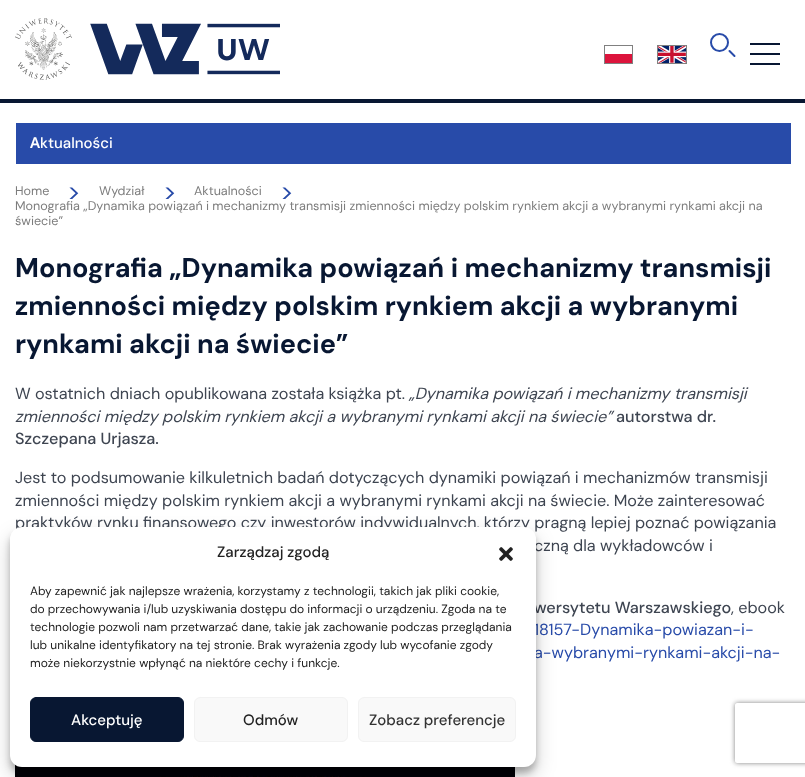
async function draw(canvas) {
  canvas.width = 805
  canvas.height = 777
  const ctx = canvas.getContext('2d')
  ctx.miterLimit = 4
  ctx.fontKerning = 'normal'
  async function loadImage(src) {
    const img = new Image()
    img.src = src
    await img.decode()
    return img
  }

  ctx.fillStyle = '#081732'
  ctx.fillRect(0, 0, 805, 777)
  ctx.fillStyle = '#fff'
  ctx.fillRect(0, 0, 805, 99)
  ctx.drawImage(await loadImage('image0.png'), 15, 18, 265, 62)
  ctx.strokeStyle = '#808080'
  ctx.strokeRect(604.5, 45.5, 28, 18)
  ctx.fillStyle = '#dc143c'
  ctx.fillRect(605, 54, 27, 9)
  ctx.strokeRect(657.5, 45.5, 29, 18)
  ctx.drawImage(await loadImage('image1.png'), 658, 46, 28, 17)
  ctx.beginPath()
  ctx.arc(719.5, 42.5, 8.5, 0, 2 * Math.PI)
  ctx.strokeStyle = '#284ba9'
  ctx.lineWidth = 2
  ctx.stroke()
  ctx.beginPath()
  ctx.moveTo(729.5, 51)
  ctx.lineTo(734.5, 56)
  ctx.lineCap = 'round'
  ctx.stroke()
  ctx.fillStyle = '#081732'
  ctx.fillRect(750, 43, 30, 2)
  ctx.fillRect(750, 53, 30, 2)
  ctx.fillRect(750, 63, 30, 2)
  ctx.fillStyle = '#fff'
  ctx.fillRect(0, 103, 805, 674)
  ctx.fillStyle = '#284ba9'
  ctx.fillRect(16, 123, 775, 41)
  ctx.font = '600 15px Noto Sans'
  ctx.fillStyle = '#fff'
  ctx.fillText('A', 30, 148)
  ctx.font = '500 15px DM Sans'
  ctx.fillText('ktualności', 40, 148)
  ctx.font = '12.6px DM Sans'
  ctx.fillStyle = '#7d7d7d'
  ctx.fillText('Home', 15, 195)
  ctx.font = '25px DM Sans'
  ctx.fillStyle = '#284ba9'
  ctx.fillText('>', 67, 200)
  ctx.font = '12.6px DM Sans'
  ctx.fillStyle = '#7d7d7d'
  ctx.fillText('Wydział', 99, 195)
  ctx.font = '25px DM Sans'
  ctx.fillStyle = '#284ba9'
  ctx.fillText('>', 163, 200)
  ctx.font = '12.6px DM Sans'
  ctx.fillStyle = '#7d7d7d'
  ctx.fillText('Aktualności', 194, 195)
  ctx.font = '25px DM Sans'
  ctx.fillStyle = '#284ba9'
  ctx.fillText('>', 280, 200)
  ctx.font = '12.6px DM Sans'
  ctx.fillStyle = '#7d7d7d'
  ctx.fillText('Monografia „Dynamika powiązań i mechanizmy transmisji zmienności między polskim rynkiem akcji a wybranymi rynkami akcji na', 15, 210)
  ctx.fillText('świecie”', 15, 225)
  ctx.font = 'bold 27px DM Sans'
  ctx.fillStyle = '#081732'
  ctx.fillText('Monografia „Dynamika powiązań i mechanizmy transmisji', 15, 277)
  ctx.fillText('zmienności między polskim rynkiem akcji a wybranymi', 15, 315)
  ctx.fillText('rynkami akcji na świecie”', 15, 353)
  ctx.font = '16.2px DM Sans'
  ctx.fillStyle = '#3e4551'
  ctx.fillText('W ostatnich dniach opublikowana została książka pt.', 15, 399)
  ctx.font = 'italic 16.2px DM Sans'
  ctx.fillText('„Dynamika powiązań i mechanizmy transmisji', 409, 399)
  ctx.fillText('zmienności między polskim rynkiem akcji a wybranymi rynkami akcji na świecie”', 15, 422)
  ctx.font = '500 16.2px DM Sans'
  ctx.fillText('autorstwa dr.', 616, 422)
  ctx.fillText('Szczepana Urjasza.', 15, 444)
  ctx.font = '16.2px DM Sans'
  ctx.fillText('Jest to podsumowanie kilkuletnich badań dotyczących dynamiki powiązań i mechanizmów transmisji', 15, 483)
  ctx.fillText('zmienności między polskim rynkiem akcji a wybranymi rynkami akcji na świecie. Może zainteresować', 15, 506)
  ctx.fillText('praktyków rynku finansowego czy inwestorów indywidualnych, którzy pragną lepiej poznać powiązania', 15, 528)
  ctx.fillText('czną dla wykładowców i', 534, 551)
  ctx.font = '500 16.2px DM Sans'
  ctx.fillText('wersytetu Warszawskiego', 534, 613)
  ctx.font = '16.2px DM Sans'
  ctx.fillText(', ebook', 731, 613)
  ctx.fillStyle = '#284ba9'
  ctx.fillText('18157-Dynamika-powiazan-i-', 534, 635)
  ctx.fillText('a-wybranymi-rynkami-akcji-na-', 534, 658)
  ctx.drawImage(await loadImage('image2.png'), 15, 764, 500, 13)
  ctx.fillStyle = '#0000003b'
  ctx.filter = 'blur(3px)'
  ctx.beginPath()
  ctx.roundRect(10, 533, 526, 240, 12)
  ctx.fill()
  ctx.filter = 'none'
  ctx.fillStyle = '#00000030'
  ctx.filter = 'blur(10px)'
  ctx.beginPath()
  ctx.roundRect(10, 537, 526, 240, 12)
  ctx.fill()
  ctx.filter = 'none'
  ctx.fillStyle = '#fff'
  ctx.beginPath()
  ctx.roundRect(10, 527, 526, 240, 12)
  ctx.fill()
  ctx.font = '500 15px DM Sans'
  ctx.fillStyle = '#222'
  ctx.fillText('Zarządzaj zgodą', 217, 557)
  ctx.drawImage(await loadImage('image3.png'), 499, 547, 14, 14)
  ctx.font = '12px DM Sans'
  ctx.fillText('Aby zapewnić jak najlepsze wrażenia, korzystamy z technologii, takich jak pliki cookie,', 30, 595)
  ctx.fillText('do przechowywania i/lub uzyskiwania dostępu do informacji o urządzeniu. Zgoda na te', 30, 613)
  ctx.fillText('technologie pozwoli nam przetwarzać dane, takie jak zachowanie podczas przeglądania', 30, 631)
  ctx.fillText('lub unikalne identyfikatory na tej stronie. Brak wyrażenia zgody lub wycofanie zgody', 30, 649)
  ctx.fillText('może niekorzystnie wpłynąć na niektóre cechy i funkcje.', 30, 667)
  ctx.fillStyle = '#081732'
  ctx.beginPath()
  ctx.roundRect(30.5, 697.5, 153, 44, 5.5)
  ctx.fill()
  ctx.strokeStyle = '#081732'
  ctx.lineWidth = 1
  ctx.stroke()
  ctx.font = '500 15px DM Sans'
  ctx.fillStyle = '#fff'
  ctx.fillText('Akceptuję', 71, 725)
  ctx.fillStyle = '#f9f9f9'
  ctx.beginPath()
  ctx.roundRect(194.5, 697.5, 153, 44, 5.5)
  ctx.fill()
  ctx.strokeStyle = '#f2f2f2'
  ctx.stroke()
  ctx.fillStyle = '#222'
  ctx.fillText('Odmów', 243, 725)
  ctx.fillStyle = '#f9f9f9'
  ctx.beginPath()
  ctx.roundRect(358.5, 697.5, 157, 44, 5.5)
  ctx.fill()
  ctx.stroke()
  ctx.fillStyle = '#333'
  ctx.fillText('Zobacz preferencje', 369, 725)
  ctx.save()
  ctx.beginPath()
  ctx.moveTo(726, 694)
  ctx.lineTo(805, 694)
  ctx.lineTo(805, 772)
  ctx.lineTo(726, 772)
  ctx.closePath()
  ctx.moveTo(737, 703)
  ctx.lineTo(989, 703)
  ctx.bezierCurveTo(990, 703, 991, 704, 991, 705)
  ctx.lineTo(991, 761)
  ctx.bezierCurveTo(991, 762, 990, 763, 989, 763)
  ctx.lineTo(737, 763)
  ctx.bezierCurveTo(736, 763, 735, 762, 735, 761)
  ctx.lineTo(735, 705)
  ctx.bezierCurveTo(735, 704, 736, 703, 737, 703)
  ctx.closePath()
  ctx.clip('evenodd')
  ctx.fillStyle = '#808080'
  ctx.filter = 'blur(2.5px)'
  ctx.beginPath()
  ctx.roundRect(735, 703, 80, 60, 2)
  ctx.fill()
  ctx.filter = 'none'
  ctx.restore()
}

draw(document.querySelector('canvas'))
